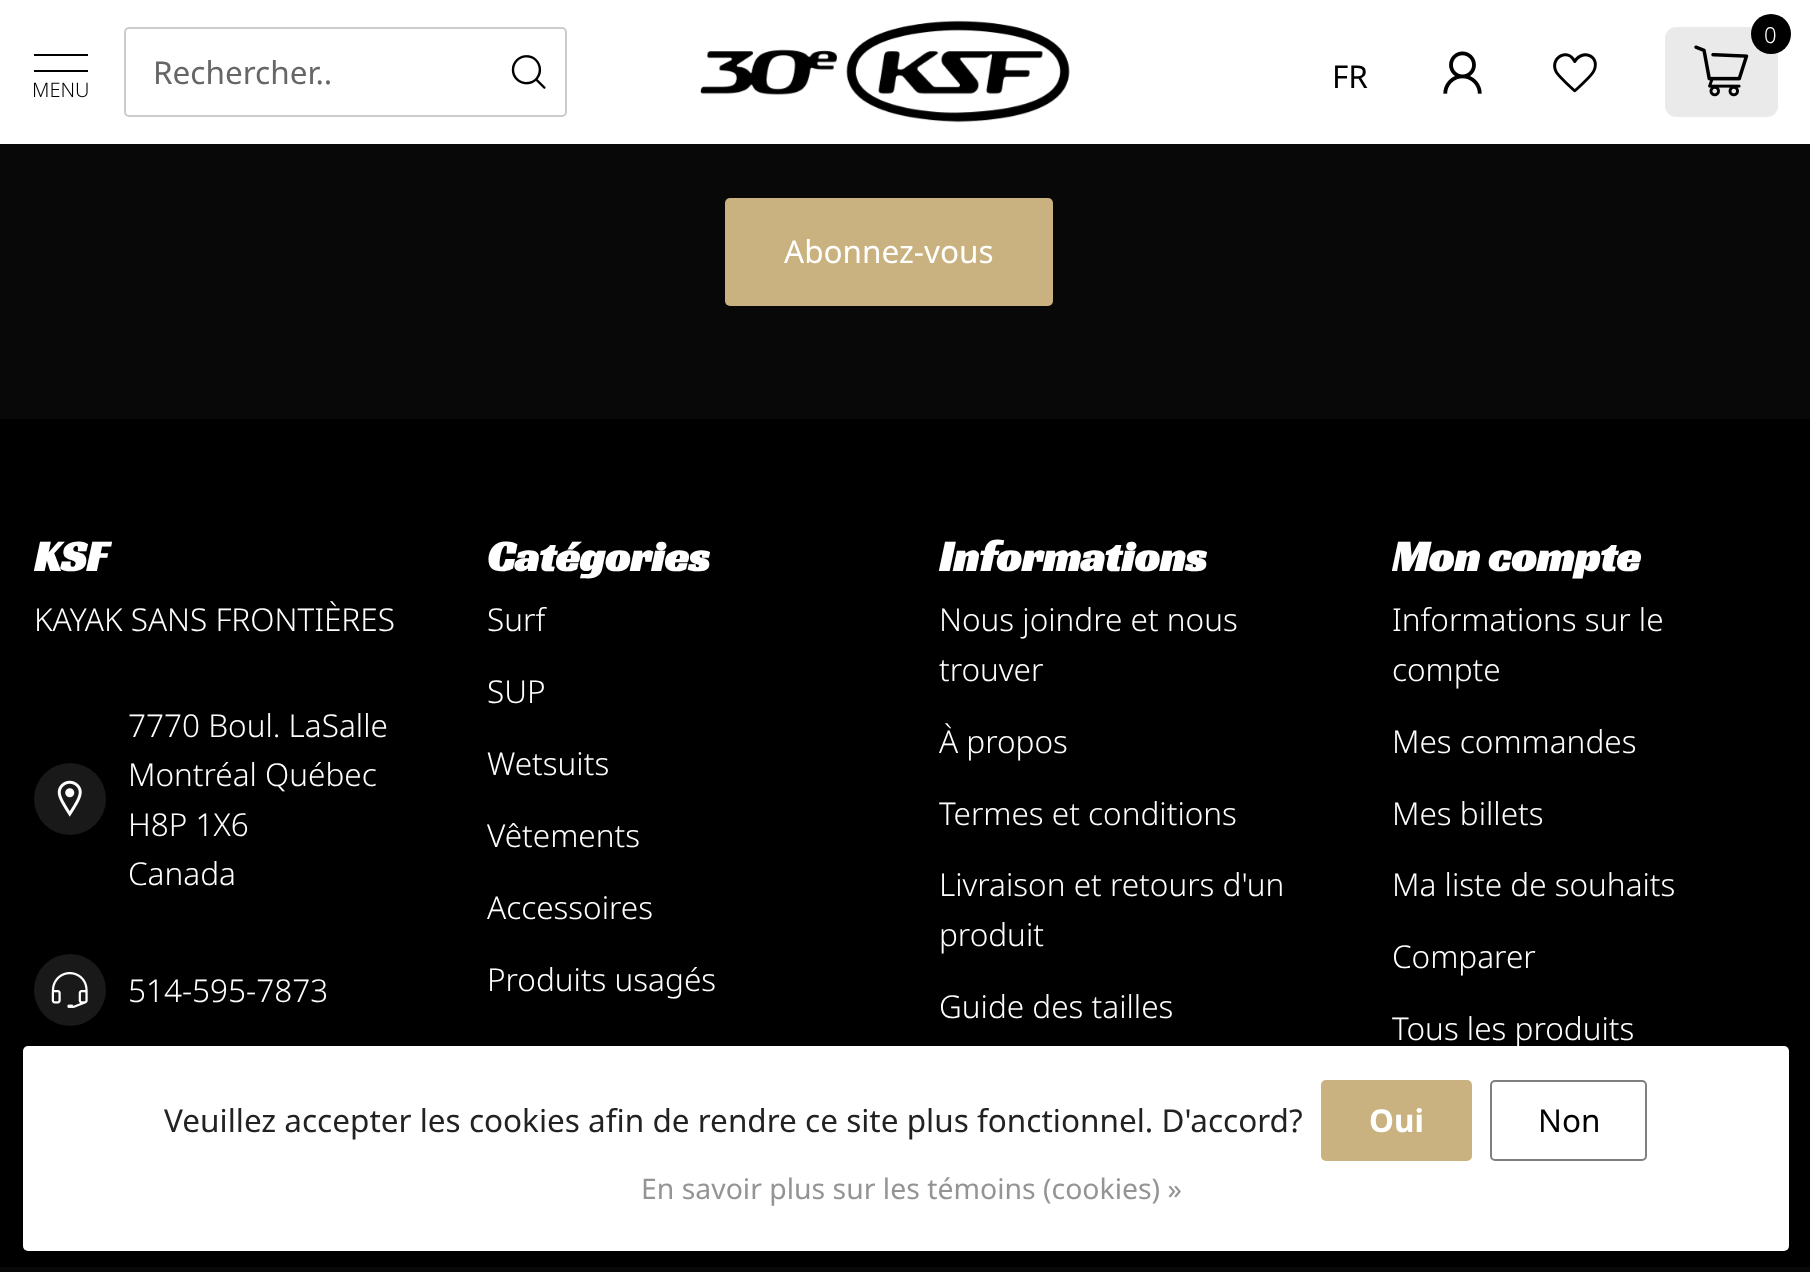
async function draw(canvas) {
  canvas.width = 1810
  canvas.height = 1272
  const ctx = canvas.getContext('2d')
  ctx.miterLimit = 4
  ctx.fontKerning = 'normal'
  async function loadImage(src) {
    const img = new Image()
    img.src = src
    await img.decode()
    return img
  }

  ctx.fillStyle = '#000'
  ctx.fillRect(0, 0, 1810, 1272)
  ctx.fillStyle = '#fff'
  ctx.fillRect(0, 0, 1810, 144)
  ctx.beginPath()
  ctx.roundRect(125, 28, 441, 88, 4)
  ctx.strokeStyle = '#ccc'
  ctx.lineWidth = 2
  ctx.stroke()
  ctx.font = '31.5px Noto Sans'
  ctx.fillStyle = '#666'
  ctx.fillText('Rechercher..', 153, 84)
  ctx.drawImage(await loadImage('image0.png'), 511, 55, 35, 34)
  ctx.fillStyle = '#000'
  ctx.fillRect(34, 54, 54, 2)
  ctx.fillRect(34, 70, 54, 2)
  ctx.font = '300 20px Noto Sans'
  ctx.fillText('MENU', 32, 97)
  ctx.drawImage(await loadImage('image1.png'), 700, 20, 370, 103)
  ctx.fillStyle = '#eaeaea'
  ctx.beginPath()
  ctx.roundRect(1665, 27, 113, 90, 11)
  ctx.fill()
  ctx.fillStyle = '#000'
  ctx.beginPath()
  ctx.arc(1771, 34, 20, 0, 2 * Math.PI)
  ctx.fill()
  ctx.font = '300 22px Noto Sans'
  ctx.fillStyle = '#fff'
  ctx.fillText('0', 1764, 43)
  ctx.drawImage(await loadImage('image2.png'), 1694, 45, 55, 52)
  ctx.font = '31.5px Noto Sans'
  ctx.fillStyle = '#000'
  ctx.fillText('FR', 1332, 88)
  ctx.drawImage(await loadImage('image3.png'), 1443, 51, 39, 43)
  ctx.drawImage(await loadImage('image4.png'), 1553, 53, 44, 40)
  ctx.fillStyle = '#080808'
  ctx.fillRect(0, 144, 1810, 275)
  ctx.fillStyle = '#c9b27f'
  ctx.beginPath()
  ctx.roundRect(725, 198, 328, 108, 5)
  ctx.fill()
  ctx.fillStyle = '#fff'
  ctx.fillText('Abonnez-vous', 784, 263)
  ctx.font = 'bold 44px Racing Sans One'
  ctx.fillText('KSF', 34, 571)
  ctx.font = '300 31.5px Noto Sans'
  ctx.fillText('KAYAK SANS FRONTIÈRES', 34, 631)
  ctx.fillStyle = '#191919'
  ctx.beginPath()
  ctx.arc(70, 799, 36, 0, 2 * Math.PI)
  ctx.fill()
  ctx.drawImage(await loadImage('image5.png'), 57, 780, 25, 37)
  ctx.fillStyle = '#fff'
  ctx.fillText('7770 Boul. LaSalle', 128, 737)
  ctx.fillText('Montréal Québec', 128, 786)
  ctx.fillText('H8P 1X6', 128, 836)
  ctx.fillText('Canada', 128, 885)
  ctx.fillStyle = '#191919'
  ctx.beginPath()
  ctx.arc(70, 990, 36, 0, 2 * Math.PI)
  ctx.fill()
  ctx.drawImage(await loadImage('image6.png'), 51, 972, 37, 36)
  ctx.fillStyle = '#fff'
  ctx.fillText('514-595-7873', 128, 1002)
  ctx.font = 'bold 44px Racing Sans One'
  ctx.fillText('Catégories', 487, 571)
  ctx.font = '300 31.5px Noto Sans'
  ctx.fillText('Surf', 487, 631)
  ctx.fillText('SUP', 487, 703)
  ctx.fillText('Wetsuits', 487, 775)
  ctx.fillText('Vêtements', 487, 847)
  ctx.fillText('Accessoires', 487, 919)
  ctx.fillText('Produits usagés', 487, 991)
  ctx.font = 'bold 44px Racing Sans One'
  ctx.fillText('Informations', 939, 571)
  ctx.font = '300 31.5px Noto Sans'
  ctx.fillText('Nous joindre et nous', 939, 631)
  ctx.fillText('trouver', 939, 681)
  ctx.fillText('À propos', 939, 753)
  ctx.fillText('Termes et conditions', 939, 825)
  ctx.fillText('Livraison et retours d\'un', 939, 896)
  ctx.fillText('produit', 939, 946)
  ctx.fillText('Guide des tailles', 939, 1018)
  ctx.font = 'bold 44px Racing Sans One'
  ctx.fillText('Mon compte', 1392, 571)
  ctx.font = '300 31.5px Noto Sans'
  ctx.fillText('Informations sur le', 1392, 631)
  ctx.fillText('compte', 1392, 681)
  ctx.fillText('Mes commandes', 1392, 753)
  ctx.fillText('Mes billets', 1392, 825)
  ctx.fillText('Ma liste de souhaits', 1392, 896)
  ctx.fillText('Comparer', 1392, 968)
  ctx.fillText('Tous les produits', 1392, 1040)
  ctx.fillStyle = '#080808'
  ctx.fillRect(0, 1267, 1810, 5)
  ctx.fillStyle = '#fff'
  ctx.beginPath()
  ctx.roundRect(23, 1046, 1766, 205, 5)
  ctx.fill()
  ctx.font = '31.5px Noto Sans'
  ctx.fillStyle = '#222'
  ctx.fillText('Veuillez accepter les cookies afin de rendre ce site plus fonctionnel. D\'accord?', 164, 1132)
  ctx.fillStyle = '#c9b27f'
  ctx.beginPath()
  ctx.roundRect(1321, 1080, 151, 81, 5)
  ctx.fill()
  ctx.font = 'bold 31.5px Noto Sans'
  ctx.fillStyle = '#fff'
  ctx.fillText('Oui', 1369, 1132)
  ctx.beginPath()
  ctx.roundRect(1491, 1081, 155, 79, 4)
  ctx.strokeStyle = '#7f7f7f'
  ctx.stroke()
  ctx.font = '31.5px Noto Sans'
  ctx.fillStyle = '#000'
  ctx.fillText('Non', 1538, 1132)
  ctx.font = '28.4px Noto Sans'
  ctx.fillStyle = '#949494'
  ctx.fillText('En savoir plus sur les témoins (cookies) »', 641, 1199)
}

draw(document.querySelector('canvas'))
